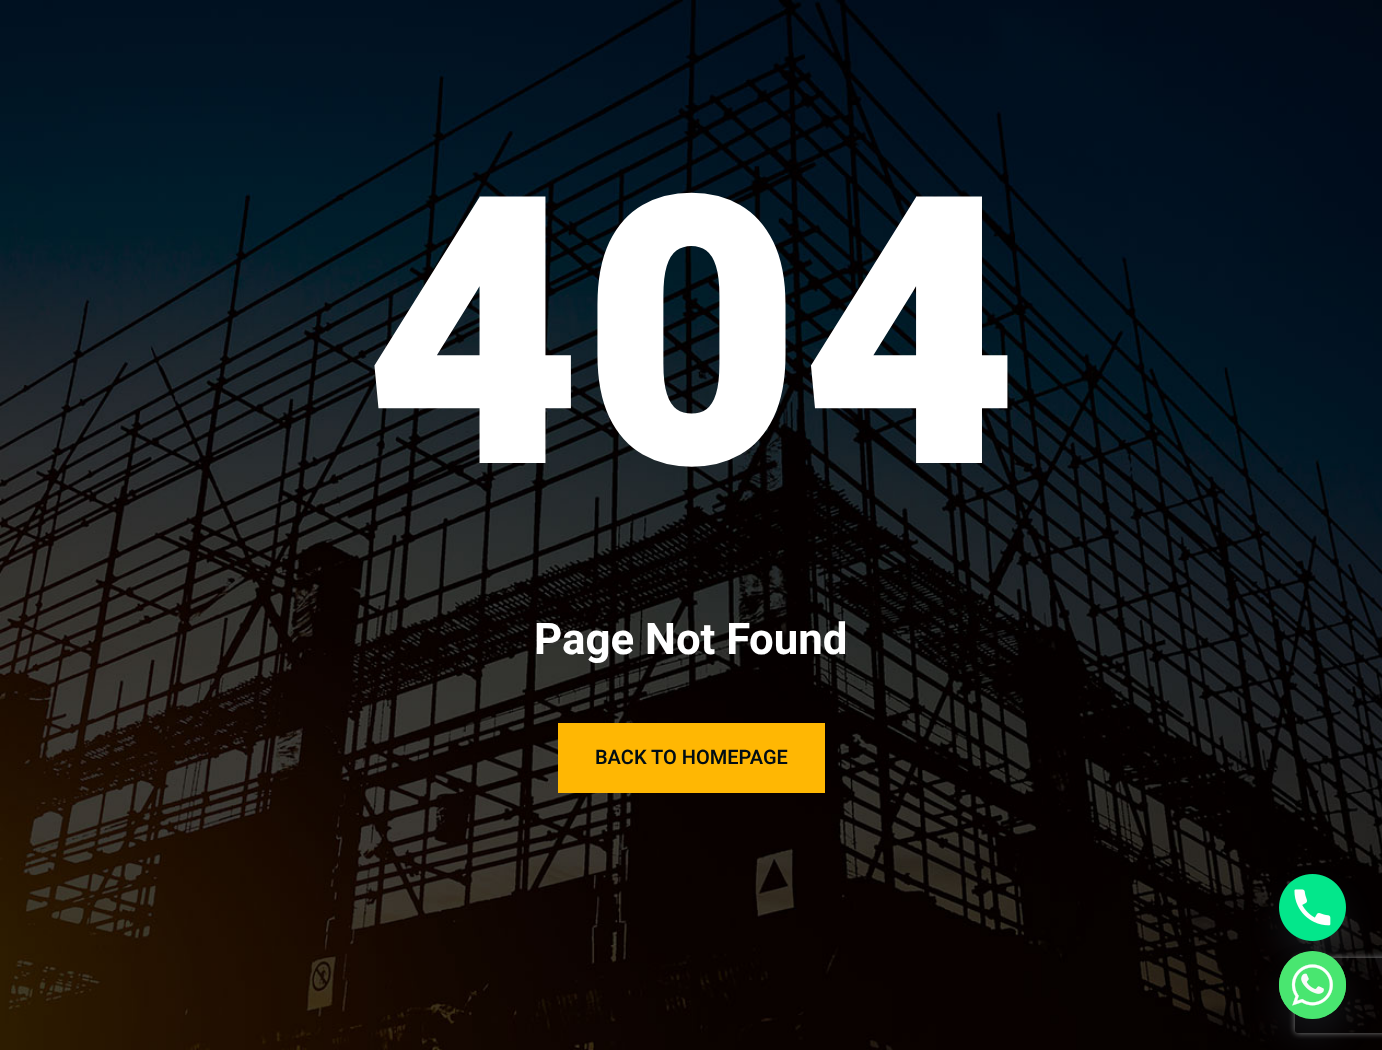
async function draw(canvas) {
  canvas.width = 1382
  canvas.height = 1050
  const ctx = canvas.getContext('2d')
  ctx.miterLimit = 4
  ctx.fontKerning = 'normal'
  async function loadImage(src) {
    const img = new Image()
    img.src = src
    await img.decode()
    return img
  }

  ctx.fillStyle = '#fff'
  ctx.fillRect(0, 0, 1382, 1050)
  ctx.drawImage(await loadImage('image0.png'), 0, 0, 1382, 1050)
  ctx.font = '900 375px Heebo'
  ctx.fillText('404', 364, 463)
  ctx.font = 'bold 43.75px Heebo'
  ctx.fillText('Page Not Found', 534, 654)
  ctx.fillStyle = '#ffb703'
  ctx.fillRect(558, 723, 267, 70)
  ctx.font = '600 20px Heebo'
  ctx.fillStyle = '#010d14'
  ctx.fillText('BACK TO HOMEPAGE', 595, 764)
  ctx.fillStyle = '#49687e29'
  ctx.filter = 'blur(15px)'
  ctx.beginPath()
  ctx.roundRect(1279, 894, 67, 67, 33.5)
  ctx.fill()
  ctx.filter = 'none'
  ctx.drawImage(await loadImage('image1.png'), 1279, 874, 67, 67)
  ctx.filter = 'blur(15px)'
  ctx.beginPath()
  ctx.roundRect(1279, 971, 67, 68, 33.5)
  ctx.fill()
  ctx.filter = 'none'
  ctx.save()
  ctx.beginPath()
  ctx.moveTo(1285, 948)
  ctx.lineTo(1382, 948)
  ctx.lineTo(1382, 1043)
  ctx.lineTo(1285, 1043)
  ctx.closePath()
  ctx.moveTo(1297.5, 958)
  ctx.lineTo(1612.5, 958)
  ctx.bezierCurveTo(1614, 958, 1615, 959, 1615, 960.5)
  ctx.lineTo(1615, 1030.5)
  ctx.bezierCurveTo(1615, 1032, 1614, 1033, 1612.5, 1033)
  ctx.lineTo(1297.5, 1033)
  ctx.bezierCurveTo(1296, 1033, 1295, 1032, 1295, 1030.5)
  ctx.lineTo(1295, 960.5)
  ctx.bezierCurveTo(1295, 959, 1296, 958, 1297.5, 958)
  ctx.closePath()
  ctx.clip('evenodd')
  ctx.fillStyle = '#808080'
  ctx.filter = 'blur(3px)'
  ctx.beginPath()
  ctx.roundRect(1295, 958, 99, 75, 2.5)
  ctx.fill()
  ctx.filter = 'none'
  ctx.restore()
  ctx.fillStyle = '#49e670'
  ctx.beginPath()
  ctx.roundRect(1279, 951, 67, 68, 33.5)
  ctx.fill()
  ctx.drawImage(await loadImage('image2.png'), 1279, 951, 67, 68)
}

draw(document.querySelector('canvas'))
